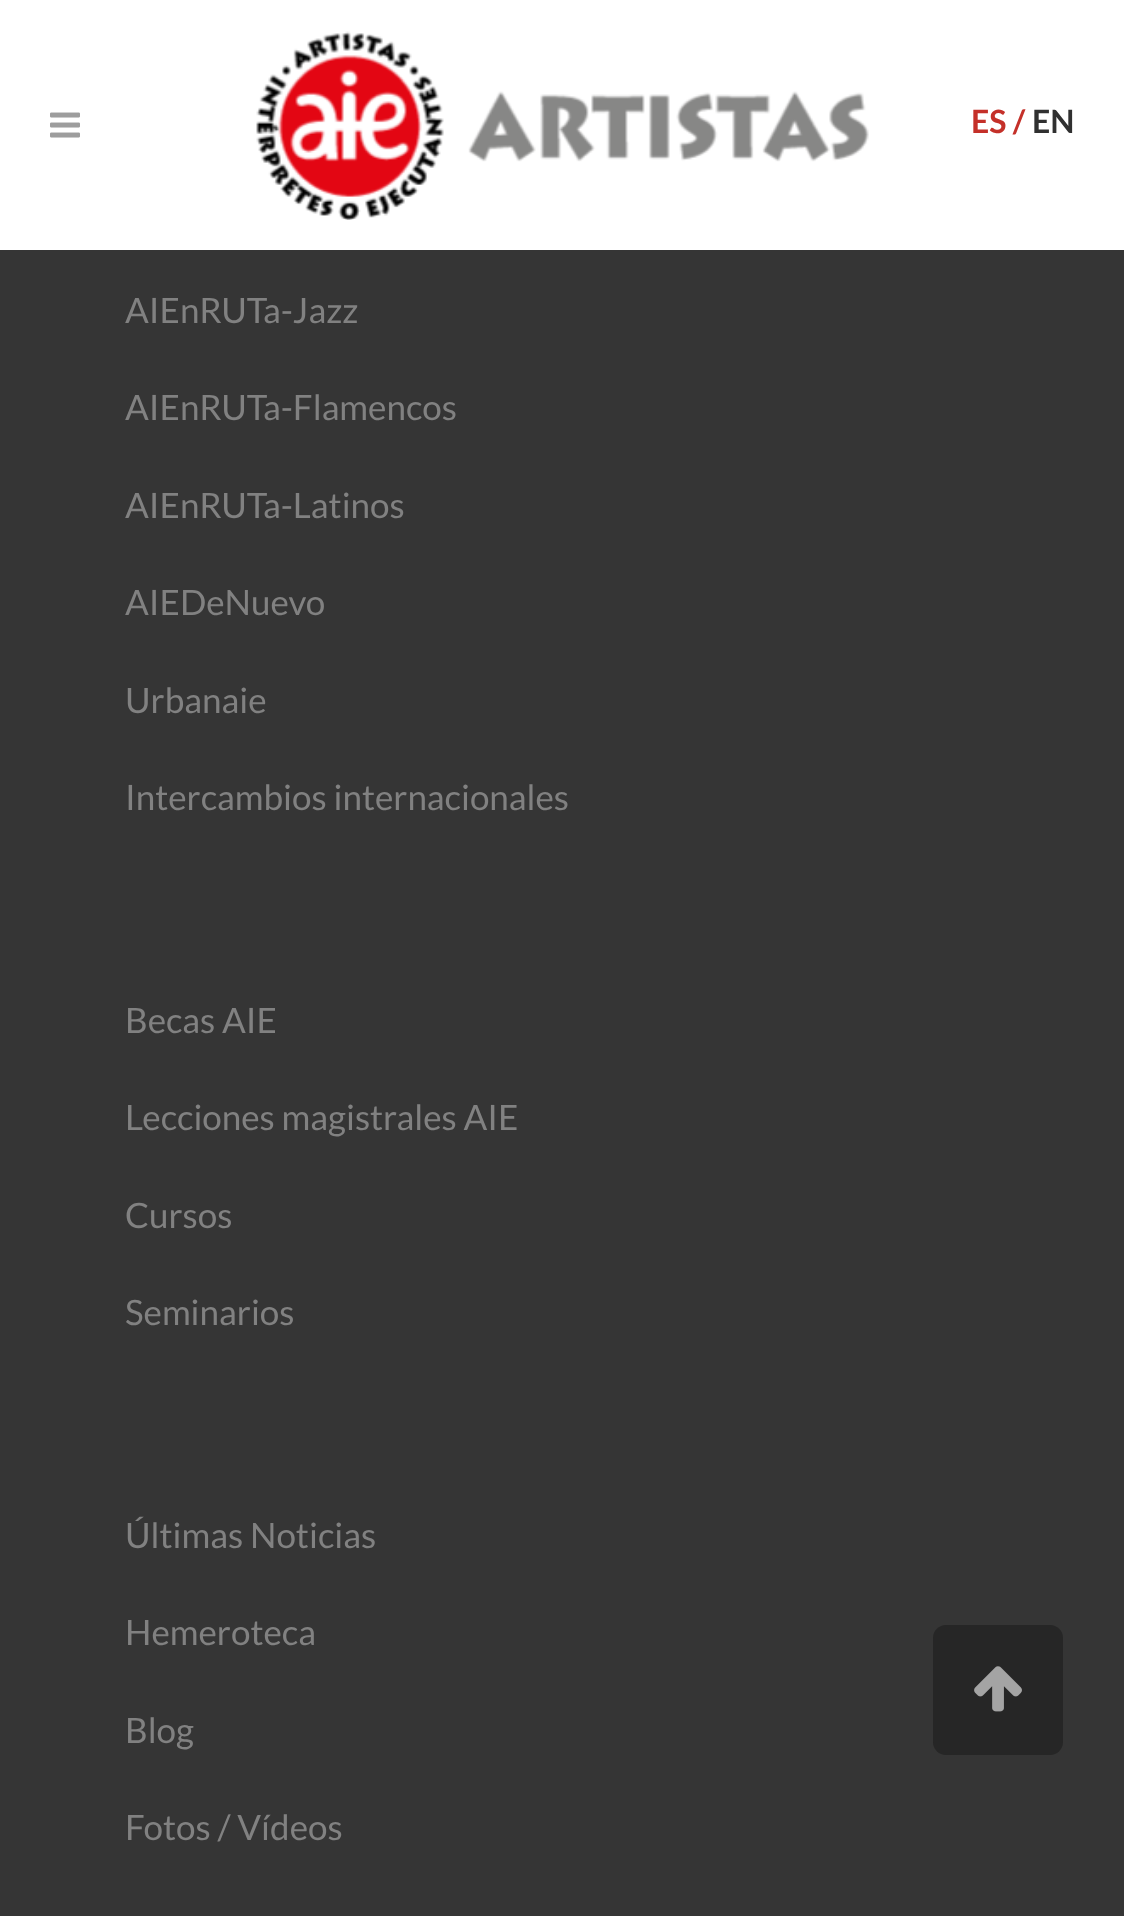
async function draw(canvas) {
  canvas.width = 1124
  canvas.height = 1916
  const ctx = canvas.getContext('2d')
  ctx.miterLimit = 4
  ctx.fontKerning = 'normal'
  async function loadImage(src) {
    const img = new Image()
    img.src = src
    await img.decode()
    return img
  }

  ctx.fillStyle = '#353535'
  ctx.fillRect(0, 0, 1124, 1916)
  ctx.fillStyle = '#fff'
  ctx.fillRect(0, 0, 1124, 250)
  ctx.drawImage(await loadImage('image0.png'), 50, 112, 30, 26)
  ctx.drawImage(await loadImage('image1.png'), 256, 31, 613, 189)
  ctx.font = 'bold 32px Lato'
  ctx.fillStyle = '#c43029'
  ctx.fillText('ES /', 971, 133)
  ctx.fillStyle = '#303030'
  ctx.fillText('EN', 1032, 133)
  ctx.font = '35px Lato'
  ctx.fillStyle = '#818181'
  ctx.fillText('AIEnRUTa-Jazz', 125, 323)
  ctx.fillText('AIEnRUTa-Flamencos', 125, 420)
  ctx.fillText('AIEnRUTa-Latinos', 125, 518)
  ctx.fillText('AIEDeNuevo', 125, 615)
  ctx.fillText('Urbanaie', 125, 713)
  ctx.fillText('Intercambios internacionales', 125, 810)
  ctx.fillText('Becas AIE', 125, 1033)
  ctx.fillText('Lecciones magistrales AIE', 125, 1130)
  ctx.fillText('Cursos', 125, 1228)
  ctx.fillText('Seminarios', 125, 1325)
  ctx.fillText('Últimas Noticias', 125, 1548)
  ctx.fillText('Hemeroteca', 125, 1645)
  ctx.fillText('Blog', 125, 1743)
  ctx.fillText('Fotos / Vídeos', 125, 1840)
  ctx.fillStyle = '#262626'
  ctx.beginPath()
  ctx.roundRect(933, 1625, 130, 130, 13)
  ctx.fill()
  ctx.drawImage(await loadImage('image2.png'), 974, 1666, 48, 46)
}

draw(document.querySelector('canvas'))
